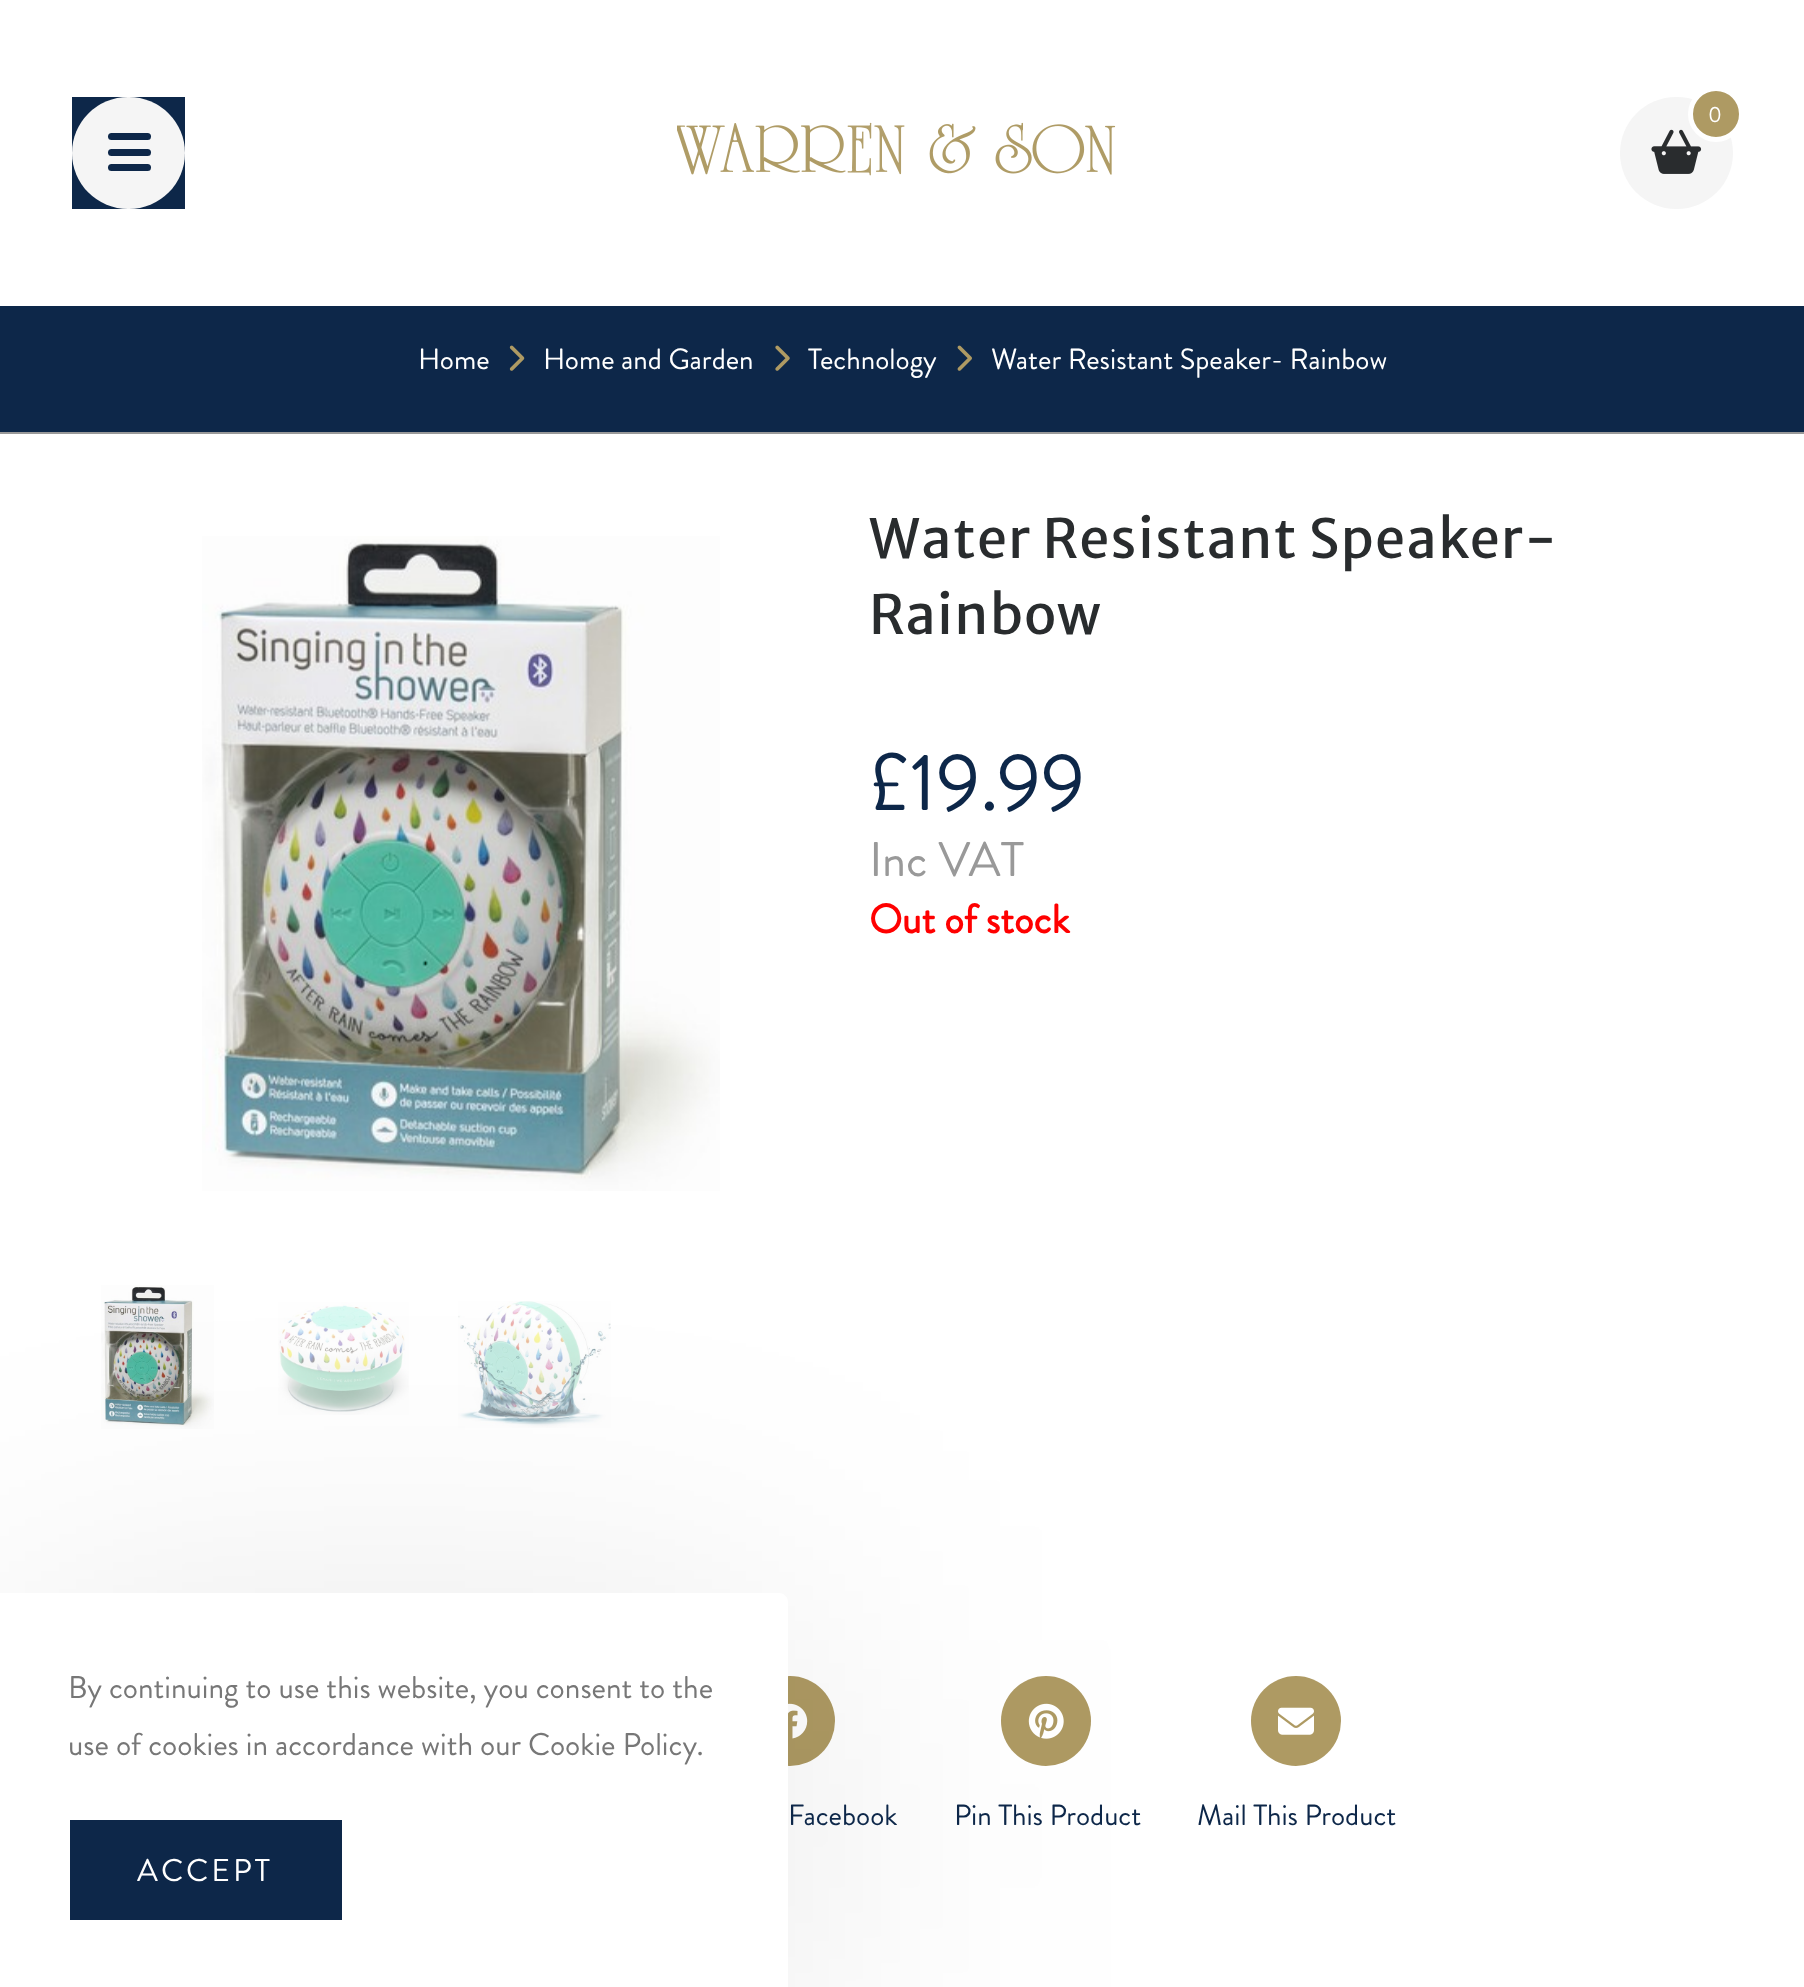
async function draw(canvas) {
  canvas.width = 1804
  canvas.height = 1987
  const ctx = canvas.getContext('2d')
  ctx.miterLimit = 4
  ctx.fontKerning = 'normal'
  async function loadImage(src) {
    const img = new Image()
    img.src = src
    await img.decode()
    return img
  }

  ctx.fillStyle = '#fff'
  ctx.fillRect(0, 0, 1804, 1987)
  ctx.drawImage(await loadImage('image5.png'), 202, 536, 518, 655)
  ctx.drawImage(await loadImage('image6.png'), 101, 1285, 113, 144)
  ctx.drawImage(await loadImage('image7.png'), 278, 1302, 131, 113)
  ctx.drawImage(await loadImage('image8.png'), 458, 1301, 153, 127)
  ctx.fillStyle = '#ae9a63'
  ctx.beginPath()
  ctx.arc(790, 1721, 45, 0, 2 * Math.PI)
  ctx.fill()
  ctx.drawImage(await loadImage('image9.png'), 788, 1703, 20, 36)
  ctx.beginPath()
  ctx.arc(1046, 1721, 45, 0, 2 * Math.PI)
  ctx.fill()
  ctx.drawImage(await loadImage('image10.png'), 1028, 1703, 36, 36)
  ctx.beginPath()
  ctx.arc(1296, 1721, 45, 0, 2 * Math.PI)
  ctx.fill()
  ctx.drawImage(await loadImage('image11.png'), 1278, 1707, 36, 28)
  ctx.fillStyle = '#0000001a'
  ctx.filter = 'blur(169px)'
  ctx.beginPath()
  ctx.roundRect(0, 1638, 788, 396, 9)
  ctx.fill()
  ctx.filter = 'none'
  ctx.fillStyle = '#fff'
  ctx.beginPath()
  ctx.moveTo(0, 1593)
  ctx.lineTo(779, 1593)
  ctx.bezierCurveTo(784, 1593, 788, 1597, 788, 1602)
  ctx.lineTo(788, 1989)
  ctx.lineTo(0, 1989)
  ctx.closePath()
  ctx.fill()
  ctx.font = '31.5px Brandon Grotesque'
  ctx.fillStyle = '#777'
  ctx.fillText('By continuing to use this website, you consent to the', 68, 1698)
  ctx.fillText('use of cookies in accordance with our Cookie Policy.', 68, 1755)
  ctx.fillStyle = '#0d2749'
  ctx.fillRect(70, 1820, 272, 100)
  ctx.letterSpacing = '3px'
  ctx.fillStyle = '#fff'
  ctx.fillText('ACCEPT', 137, 1881)
  ctx.fillStyle = '#0d2749'
  ctx.fillRect(72, 97, 113, 112)
  ctx.fillStyle = '#f5f5f5'
  ctx.beginPath()
  ctx.roundRect(72, 97, 113, 112, 56)
  ctx.fill()
  ctx.fillStyle = '#0d2749'
  ctx.beginPath()
  ctx.roundRect(108, 149, 43, 7, 3.5)
  ctx.fill()
  ctx.beginPath()
  ctx.roundRect(108, 133, 43, 7, 3.5)
  ctx.fill()
  ctx.beginPath()
  ctx.roundRect(108, 164, 43, 7, 3.5)
  ctx.fill()
  ctx.fillStyle = '#f5f5f5'
  ctx.beginPath()
  ctx.roundRect(1620, 97, 113, 112, 56)
  ctx.fill()
  ctx.drawImage(await loadImage('image0.png'), 1651, 129, 51, 45)
  ctx.fillStyle = '#ae9a63'
  ctx.beginPath()
  ctx.arc(1716, 114, 25.5, 0, 2 * Math.PI)
  ctx.fill()
  ctx.strokeStyle = '#fff'
  ctx.lineWidth = 5
  ctx.stroke()
  ctx.letterSpacing = '0px'
  ctx.font = '22px Brandon Grotesque'
  ctx.fillStyle = '#fff'
  ctx.fillText('0', 1708, 122)
  ctx.drawImage(await loadImage('image1.png'), 677, 122, 439, 54)
  ctx.fillStyle = '#0d2749'
  ctx.fillRect(0, 306, 1804, 126)
  ctx.fillStyle = '#999'
  ctx.fillRect(0, 432, 1804, 2)
  ctx.font = '29.25px Brandon Grotesque'
  ctx.fillStyle = '#fff'
  ctx.fillText('Home', 418, 369)
  ctx.drawImage(await loadImage('image2.png'), 509, 345, 16, 26)
  ctx.fillText('Home and Garden', 543, 369)
  ctx.drawImage(await loadImage('image3.png'), 775, 345, 15, 26)
  ctx.fillText('Technology', 808, 369)
  ctx.drawImage(await loadImage('image4.png'), 957, 345, 15, 26)
  ctx.fillText('Water Resistant Speaker- Rainbow', 991, 369)
  ctx.letterSpacing = '1.35px'
  ctx.font = '54px Merriweather Sans'
  ctx.fillStyle = '#292c2e'
  ctx.fillText('Water Resistant Speaker-', 869, 558)
  ctx.fillText('Rainbow', 869, 634)
  ctx.letterSpacing = '0px'
  ctx.font = '81px Brandon Grotesque'
  ctx.fillStyle = '#0d2749'
  ctx.fillText('£19.99', 869, 810)
  ctx.font = '48.5px Brandon Grotesque'
  ctx.fillStyle = '#999'
  ctx.fillText('Inc VAT', 869, 876)
  ctx.font = 'bold 40.5px Brandon Grotesque'
  ctx.fillStyle = '#f00'
  ctx.fillText('Out of stock', 869, 933)
  ctx.font = '29.25px Brandon Grotesque'
  ctx.fillStyle = '#0d2749'
  ctx.fillText('Facebook', 788, 1825)
  ctx.fillText('Pin This Product', 954, 1825)
  ctx.fillText('Mail This Product', 1197, 1825)
}

draw(document.querySelector('canvas'))
